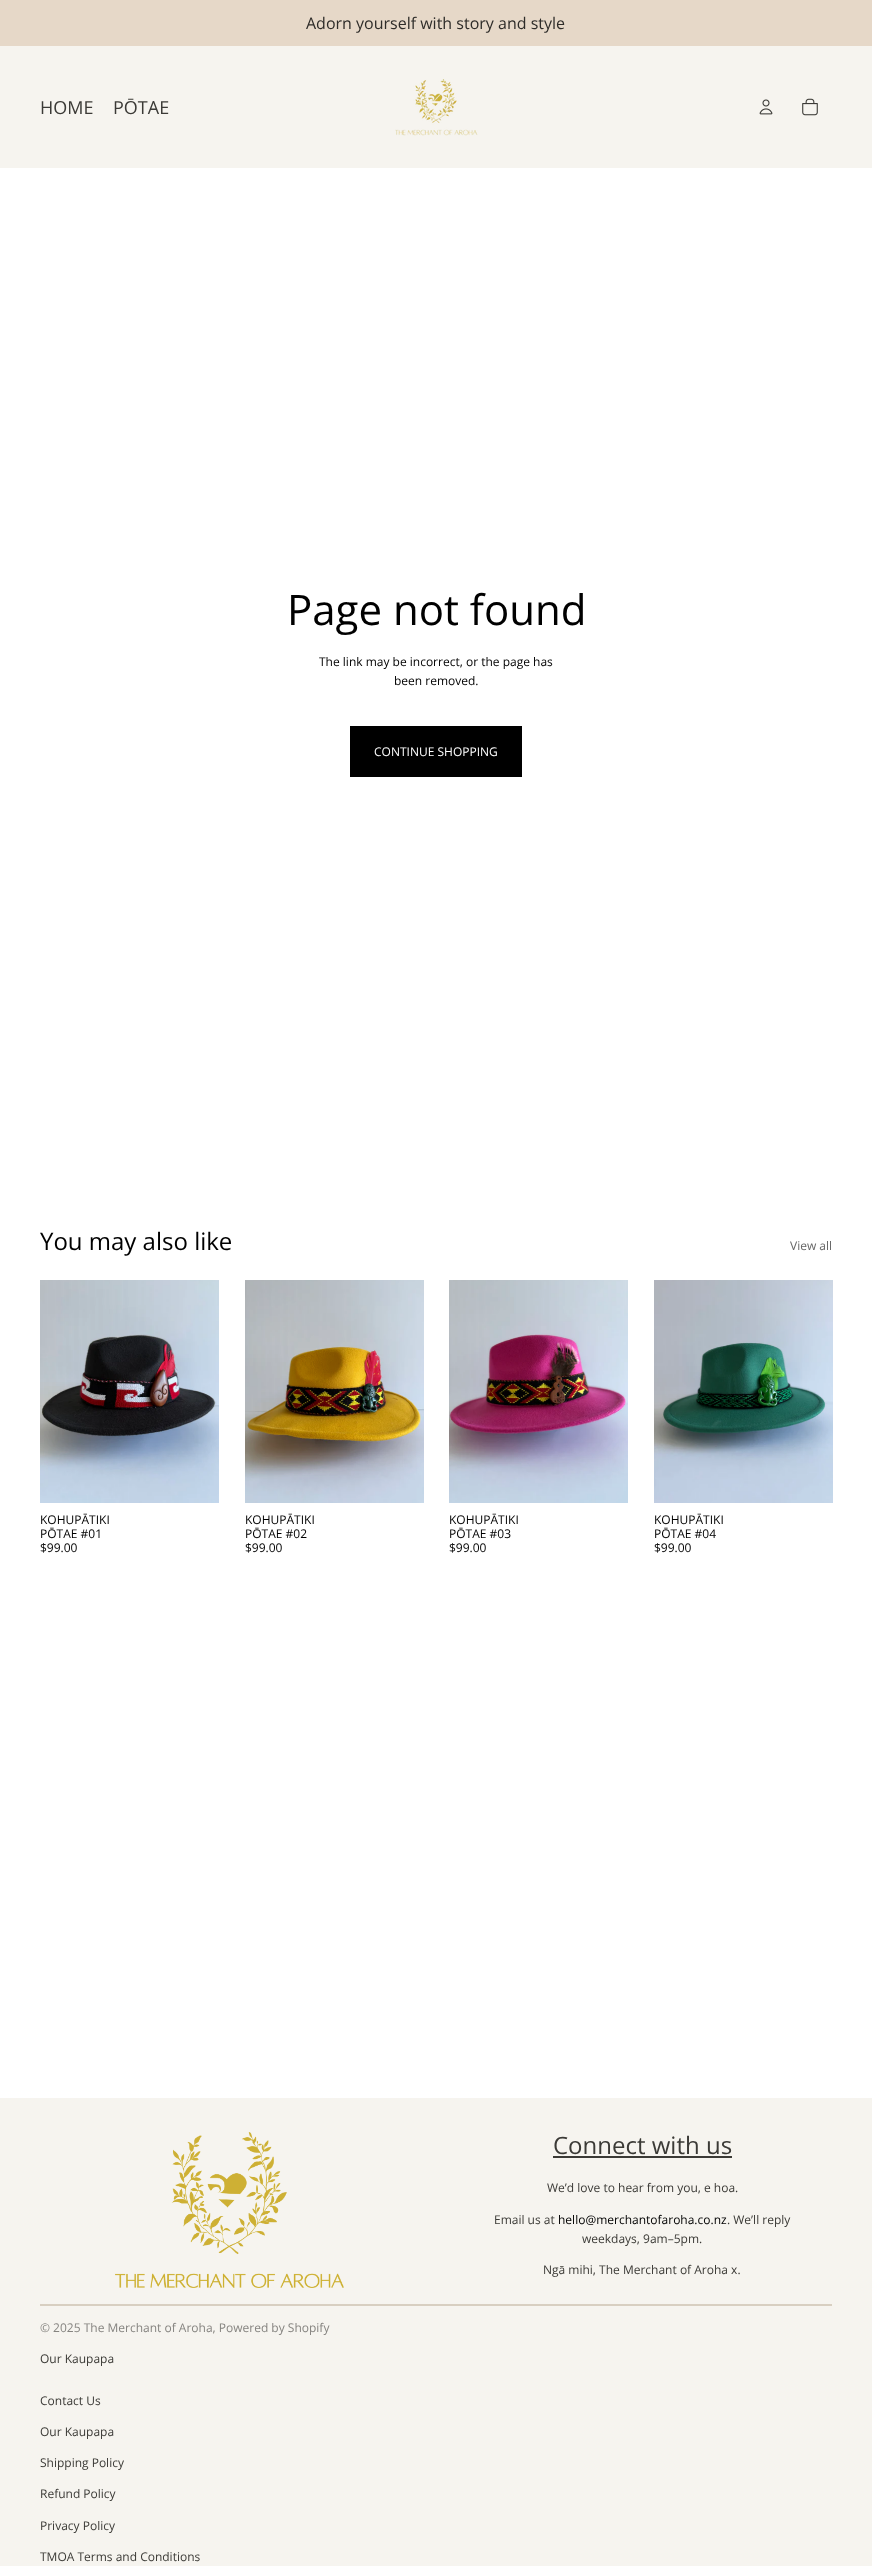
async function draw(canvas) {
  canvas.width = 872
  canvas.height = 2566
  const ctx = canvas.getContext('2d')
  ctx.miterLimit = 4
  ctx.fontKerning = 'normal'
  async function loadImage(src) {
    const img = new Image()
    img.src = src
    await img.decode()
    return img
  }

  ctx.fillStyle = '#fff'
  ctx.fillRect(0, 0, 872, 2566)
  ctx.fillStyle = '#e6d8c8'
  ctx.fillRect(0, 0, 872, 46)
  ctx.font = '16px Open Sans'
  ctx.fillStyle = '#2e2c29'
  ctx.fillText('Adorn yourself with story and style', 306, 29)
  ctx.fillStyle = '#f6f4ef'
  ctx.fillRect(0, 46, 872, 122)
  ctx.font = '18px Open Sans'
  ctx.fillStyle = '#3b3a36'
  ctx.fillText('HOME', 40, 114)
  ctx.fillText('PŌTAE', 113, 114)
  ctx.drawImage(await loadImage('image0.png'), 395, 79, 83, 57)
  ctx.drawImage(await loadImage('image1.png'), 759, 99, 14, 16)
  ctx.drawImage(await loadImage('image2.png'), 802, 98, 16, 18)
  ctx.font = '42px Open Sans'
  ctx.fillStyle = '#000'
  ctx.fillText('Page not found', 287, 625)
  ctx.font = '12px Open Sans'
  ctx.fillText('The link may be incorrect, or the page has', 319, 666)
  ctx.fillText('been removed.', 394, 685)
  ctx.fillRect(350, 726, 172, 51)
  ctx.fillStyle = '#fff'
  ctx.fillText('CONTINUE SHOPPING', 374, 756)
  ctx.font = '24px Open Sans'
  ctx.fillStyle = '#000'
  ctx.fillText('You may also like', 40, 1250)
  ctx.font = '12px Open Sans'
  ctx.fillStyle = '#666'
  ctx.fillText('View all', 790, 1250)
  ctx.drawImage(await loadImage('image3.png'), 40, 1280, 179, 223)
  ctx.fillStyle = '#000'
  ctx.fillText('KOHUPĀTIKI', 40, 1524)
  ctx.fillText('PŌTAE #01', 40, 1538)
  ctx.fillText('$99.00', 40, 1552)
  ctx.drawImage(await loadImage('image4.png'), 245, 1280, 179, 223)
  ctx.fillText('KOHUPĀTIKI', 245, 1524)
  ctx.fillText('PŌTAE #02', 245, 1538)
  ctx.fillText('$99.00', 245, 1552)
  ctx.drawImage(await loadImage('image5.png'), 449, 1280, 179, 223)
  ctx.fillText('KOHUPĀTIKI', 449, 1524)
  ctx.fillText('PŌTAE #03', 449, 1538)
  ctx.fillText('$99.00', 449, 1552)
  ctx.drawImage(await loadImage('image6.png'), 654, 1280, 179, 223)
  ctx.fillText('KOHUPĀTIKI', 654, 1524)
  ctx.fillText('PŌTAE #04', 654, 1538)
  ctx.fillText('$99.00', 654, 1552)
  ctx.fillStyle = '#f6f4ef'
  ctx.fillRect(0, 2098, 872, 468)
  ctx.drawImage(await loadImage('image7.png'), 115, 2132, 229, 156)
  ctx.font = '24px Open Sans'
  ctx.fillStyle = '#3b3a36'
  ctx.fillText('Connect with us', 553, 2154)
  ctx.fillRect(553, 2156, 179, 2)
  ctx.font = '12px Open Sans'
  ctx.fillText('We’d love to hear from you, e hoa.', 547, 2192)
  ctx.fillText('Email us at', 494, 2224)
  ctx.fillStyle = '#000'
  ctx.fillText('hello@merchantofaroha.co.nz', 558, 2224)
  ctx.fillStyle = '#3b3a36'
  ctx.fillText('. We’ll reply', 727, 2224)
  ctx.fillText('weekdays, 9am–5pm.', 582, 2243)
  ctx.fillText('Ngā mihi, The Merchant of Aroha x.', 543, 2274)
  ctx.fillStyle = '#d8cfc1'
  ctx.fillRect(40, 2304, 792, 2)
  ctx.fillStyle = '#868480'
  ctx.fillText('© 2025 The Merchant of Aroha, Powered by Shopify', 40, 2332)
  ctx.fillStyle = '#3b3a36'
  ctx.fillText('Our Kaupapa', 40, 2363)
  ctx.fillText('Contact Us', 40, 2405)
  ctx.fillText('Our Kaupapa', 40, 2436)
  ctx.fillText('Shipping Policy', 40, 2467)
  ctx.fillText('Refund Policy', 40, 2498)
  ctx.fillText('Privacy Policy', 40, 2530)
  ctx.fillText('TMOA Terms and Conditions', 40, 2561)
}

draw(document.querySelector('canvas'))
